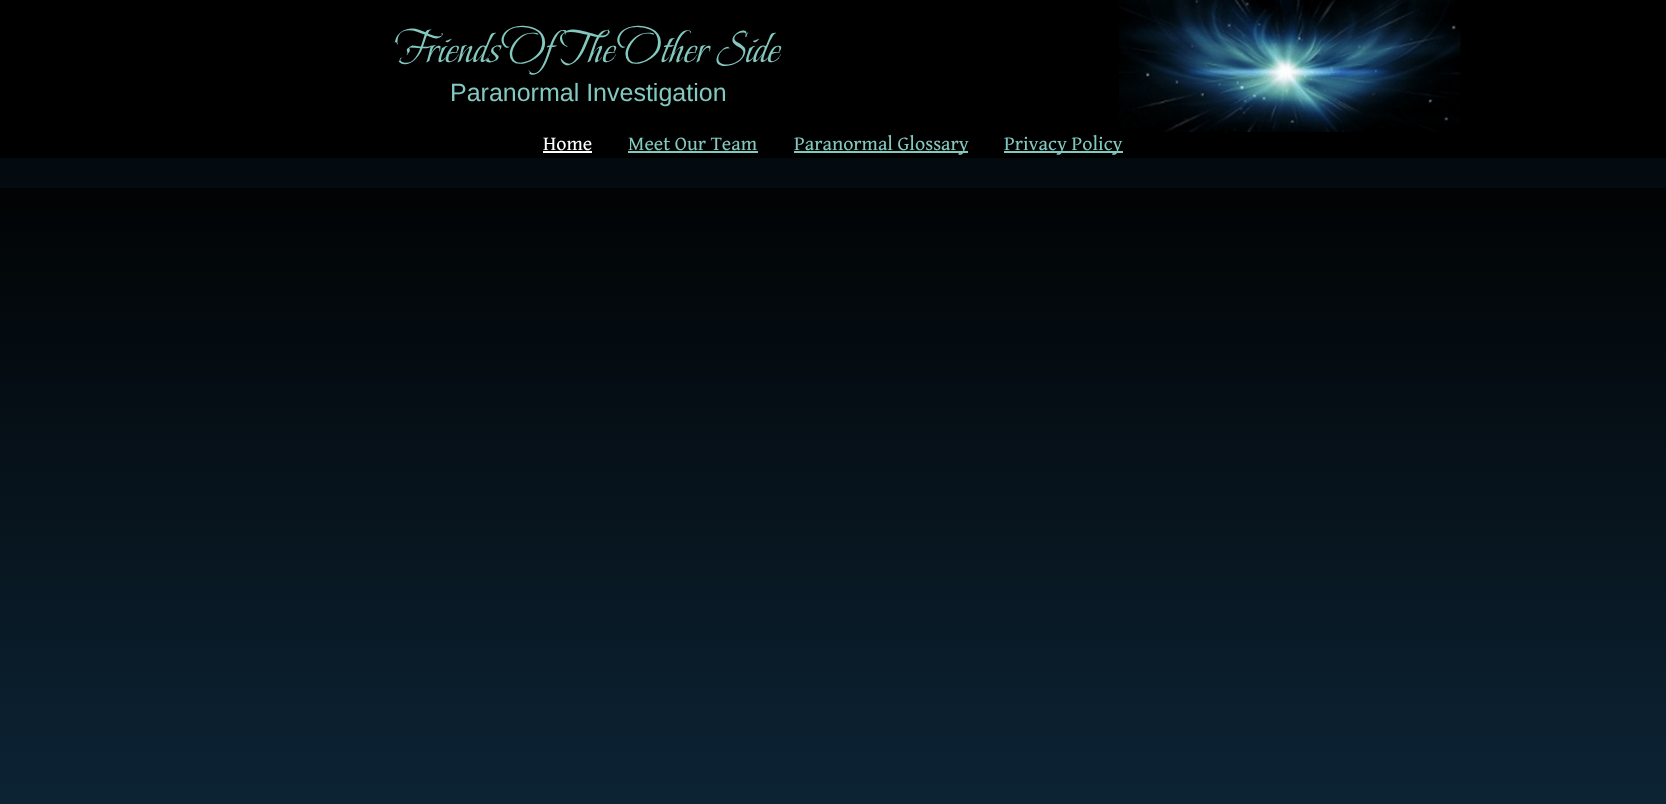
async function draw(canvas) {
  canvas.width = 1666
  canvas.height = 804
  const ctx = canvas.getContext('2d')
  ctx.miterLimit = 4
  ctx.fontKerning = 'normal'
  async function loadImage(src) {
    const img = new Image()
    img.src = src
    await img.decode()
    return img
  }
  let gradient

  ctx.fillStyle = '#fff'
  ctx.fillRect(0, 0, 1666, 804)
  gradient = ctx.createLinearGradient(833, 0, 833, 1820)
  gradient.addColorStop(0, '#010304')
  gradient.addColorStop(1, '#1d537c')
  ctx.fillStyle = gradient
  ctx.fillRect(0, 158, 1666, 30)
  ctx.fillStyle = '#000'
  ctx.fillRect(0, 0, 1666, 158)
  ctx.drawImage(await loadImage('image0.png'), 1119, 0, 342, 132)
  ctx.font = '46px Beau Rivage'
  ctx.fillStyle = '#83c9c0'
  ctx.fillText('Friends Of The Other Side', 395, 62)
  ctx.font = '25px Liberation Sans'
  ctx.fillText('Paranormal Investigation', 450, 101)
  ctx.font = '20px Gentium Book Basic'
  ctx.fillStyle = '#fff'
  ctx.fillText('Home', 543, 150)
  ctx.fillRect(543, 151, 49, 2)
  ctx.fillStyle = '#83c9c0'
  ctx.fillText('Meet Our Team', 628, 150)
  ctx.fillRect(628, 151, 130, 2)
  ctx.fillRect(794, 151, 174, 2)
  ctx.fillText('Paranormal Glossary', 794, 150)
  ctx.fillRect(1004, 151, 119, 2)
  ctx.fillText('Privacy Policy', 1004, 150)
  gradient = ctx.createLinearGradient(833, 188, 833, 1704)
  gradient.addColorStop(0, '#010304')
  gradient.addColorStop(1, '#1d537c')
  ctx.fillStyle = gradient
  ctx.fillRect(0, 188, 1666, 616)
}

draw(document.querySelector('canvas'))
